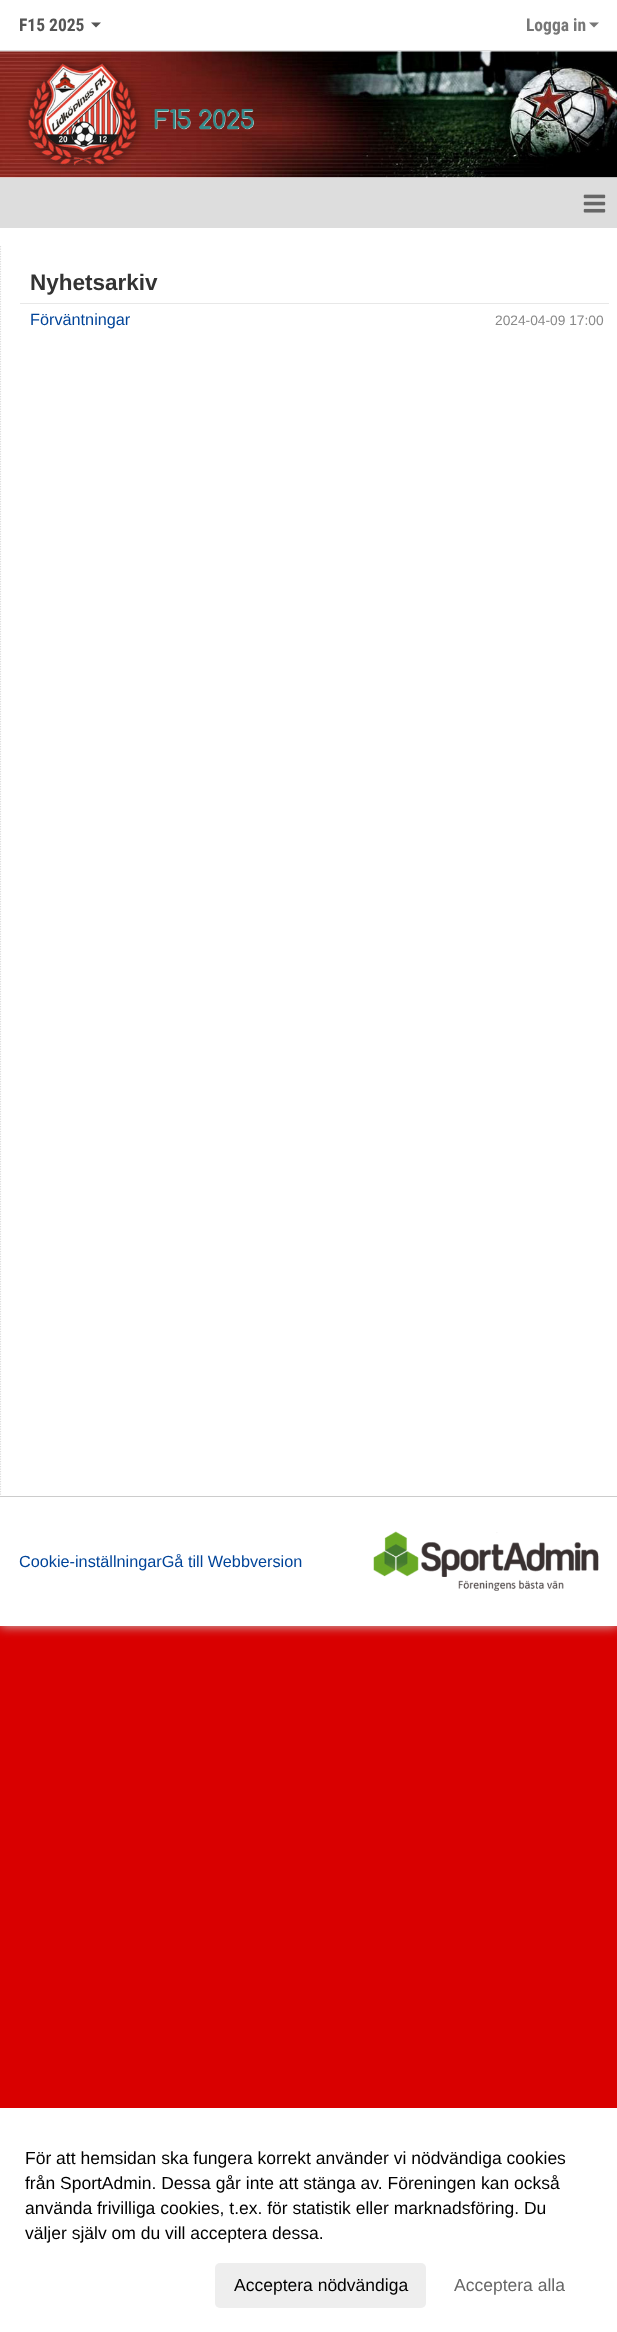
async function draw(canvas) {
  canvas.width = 617
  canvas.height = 2332
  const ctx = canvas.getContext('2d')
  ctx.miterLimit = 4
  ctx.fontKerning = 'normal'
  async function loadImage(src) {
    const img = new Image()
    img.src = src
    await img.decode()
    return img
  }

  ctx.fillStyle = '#d90000'
  ctx.fillRect(0, 0, 617, 2332)
  ctx.fillStyle = '#ccc'
  ctx.filter = 'blur(6px)'
  ctx.beginPath()
  ctx.rect(0, 0, 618, 1626)
  ctx.fill()
  ctx.filter = 'none'
  ctx.fillStyle = '#fff'
  ctx.fillRect(0, 0, 617, 1626)
  ctx.font = 'bold 17.5px Roboto Condensed'
  ctx.fillStyle = '#555'
  ctx.fillText('F15 2025', 19, 31)
  ctx.beginPath()
  ctx.moveTo(91, 22.5)
  ctx.lineTo(101, 22.5)
  ctx.lineTo(96, 27.5)
  ctx.closePath()
  ctx.fill()
  ctx.fillStyle = '#777'
  ctx.fillText('Logga in', 526, 31)
  ctx.beginPath()
  ctx.moveTo(589, 22.5)
  ctx.lineTo(599, 22.5)
  ctx.lineTo(594, 27.5)
  ctx.closePath()
  ctx.fill()
  ctx.fillStyle = '#ddd'
  ctx.fillRect(0, 50, 617, 1)
  ctx.drawImage(await loadImage('image0.png'), 0, 51, 617, 127)
  ctx.drawImage(await loadImage('image1.png'), 154, 108, 100, 22)
  ctx.fillRect(0, 178, 617, 50)
  ctx.drawImage(await loadImage('image2.png'), 583, 194, 23, 19)
  ctx.beginPath()
  ctx.moveTo(0.5, 246)
  ctx.lineTo(0.5, 1496)
  ctx.strokeStyle = '#ddd'
  ctx.lineWidth = 1.2
  ctx.setLineDash([1.25, 1.25])
  ctx.stroke()
  ctx.font = 'bold 22.5px Liberation Sans'
  ctx.fillStyle = '#333'
  ctx.fillText('Nyhetsarkiv', 30, 290)
  ctx.fillStyle = '#e8e8e8'
  ctx.fillRect(20, 303, 589, 1)
  ctx.font = '16.25px Liberation Sans'
  ctx.fillStyle = '#049'
  ctx.fillText('Förväntningar', 30, 325)
  ctx.font = '13.75px Liberation Sans'
  ctx.fillStyle = '#888'
  ctx.fillText('2024-04-09 17:00', 495, 325)
  ctx.fillStyle = '#ccc'
  ctx.fillRect(0, 1496, 617, 1)
  ctx.font = '16.25px Liberation Sans'
  ctx.fillStyle = '#049'
  ctx.fillText('Cookie-inställningarGå till Webbversion', 19, 1567)
  ctx.drawImage(await loadImage('image3.png'), 373, 1531, 226, 60)
  ctx.fillStyle = '#fff'
  ctx.fillRect(0, 2108, 617, 224)
  ctx.font = '17.5px Liberation Sans'
  ctx.fillStyle = '#000'
  ctx.fillText('För att hemsidan ska fungera korrekt använder vi nödvändiga cookies', 25, 2164)
  ctx.fillText('från SportAdmin. Dessa går inte att stänga av. Föreningen kan också', 25, 2189)
  ctx.fillText('använda frivilliga cookies, t.ex. för statistik eller marknadsföring. Du', 25, 2214)
  ctx.fillText('väljer själv om du vill acceptera dessa.', 25, 2239)
  ctx.fillStyle = '#eee'
  ctx.beginPath()
  ctx.roundRect(215, 2263, 211, 45, 5)
  ctx.fill()
  ctx.fillStyle = '#000'
  ctx.fillText('Acceptera nödvändiga', 234, 2291)
  ctx.fillStyle = '#666'
  ctx.fillText('Acceptera alla', 454, 2291)
}

draw(document.querySelector('canvas'))
